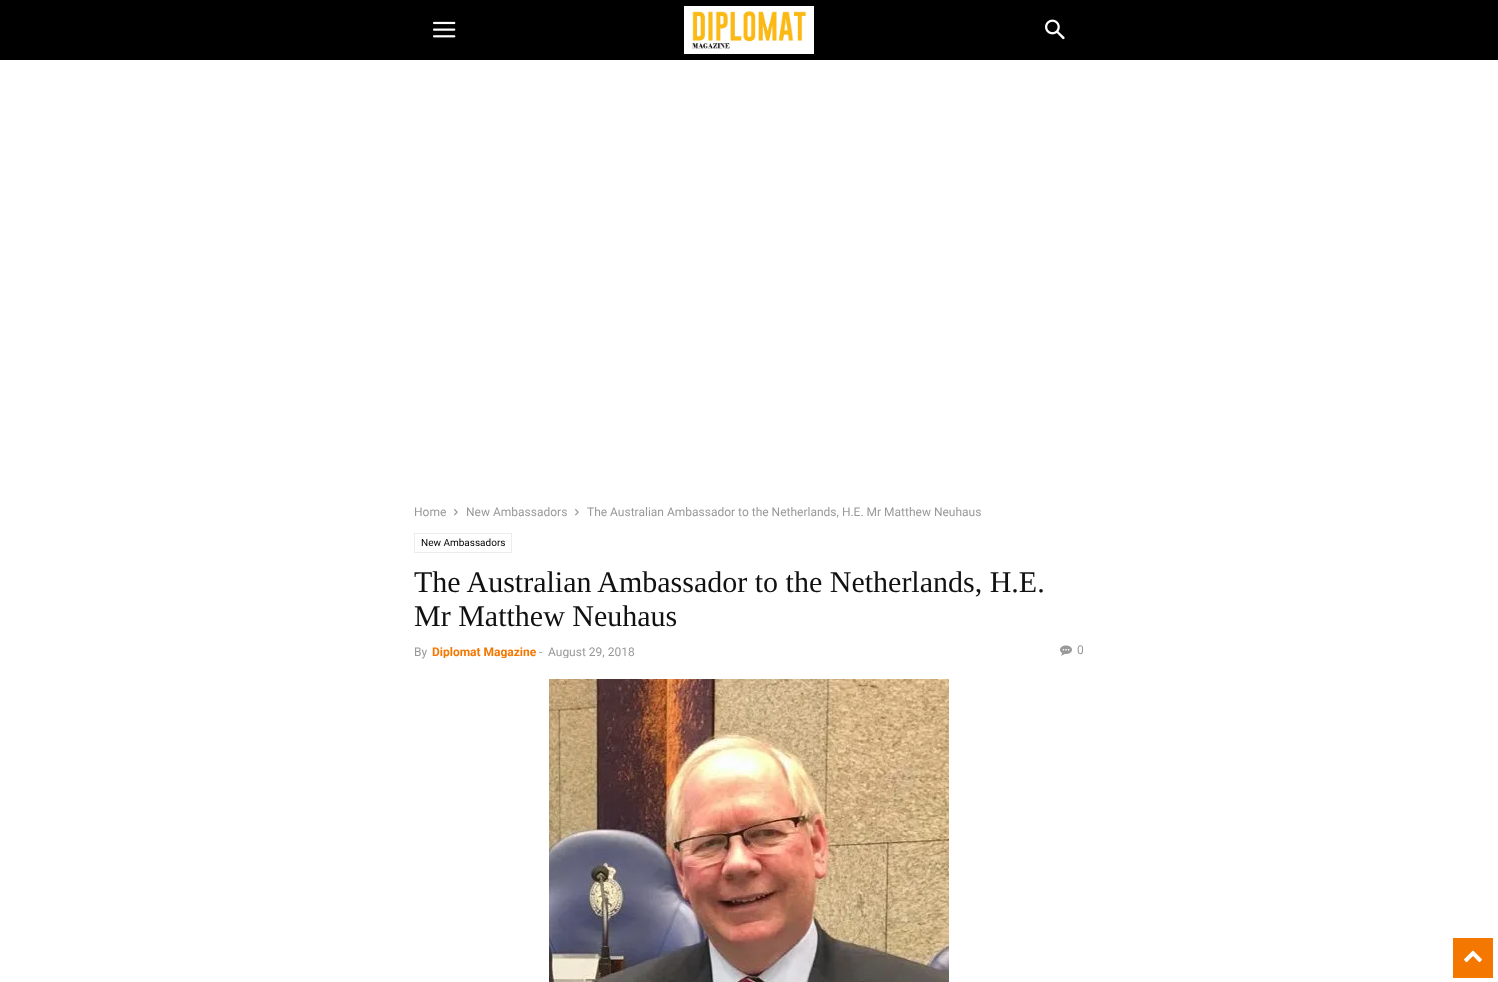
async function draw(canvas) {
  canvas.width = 1498
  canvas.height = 982
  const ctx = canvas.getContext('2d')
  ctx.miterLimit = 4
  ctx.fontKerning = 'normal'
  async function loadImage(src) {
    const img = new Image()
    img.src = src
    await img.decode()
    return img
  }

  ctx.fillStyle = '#fff'
  ctx.fillRect(0, 0, 1498, 982)
  ctx.fillStyle = '#000'
  ctx.fillRect(0, 0, 1498, 60)
  ctx.drawImage(await loadImage('image0.png'), 433, 21, 23, 17)
  ctx.drawImage(await loadImage('image1.png'), 684, 6, 130, 48)
  ctx.drawImage(await loadImage('image2.png'), 1045, 19, 20, 21)
  ctx.font = '12px Roboto'
  ctx.fillStyle = '#999'
  ctx.fillText('Home', 414, 516)
  ctx.drawImage(await loadImage('image3.png'), 454, 509, 4, 7)
  ctx.fillText('New Ambassadors', 466, 516)
  ctx.drawImage(await loadImage('image3.png'), 575, 509, 4, 7)
  ctx.fillText('The Australian Ambassador to the Netherlands, H.E. Mr Matthew Neuhaus', 587, 516)
  ctx.strokeStyle = '#ededed'
  ctx.strokeRect(414.5, 533.5, 97, 19)
  ctx.font = '10px Roboto'
  ctx.fillStyle = '#000'
  ctx.fillText('New Ambassadors', 421, 546)
  ctx.font = '30px Liberation Serif'
  ctx.fillStyle = '#111'
  ctx.fillText('The Australian Ambassador to the Netherlands, H.E.', 414, 592)
  ctx.fillText('Mr Matthew Neuhaus', 414, 626)
  ctx.font = '12px Roboto'
  ctx.fillStyle = '#999'
  ctx.fillText('By', 414, 656)
  ctx.save()
  ctx.beginPath()
  ctx.rect(414, 642, 670, 16)
  ctx.clip()
  ctx.font = 'bold 12px Roboto'
  ctx.fillStyle = '#f47700'
  ctx.fillText('Diplomat Magazine', 432, 656)
  ctx.restore()
  ctx.fillText('-', 539, 656)
  ctx.save()
  ctx.beginPath()
  ctx.rect(414, 642, 670, 16)
  ctx.clip()
  ctx.fillText('August 29, 2018', 548, 656)
  ctx.restore()
  ctx.drawImage(await loadImage('image4.png'), 1060, 645, 12, 11)
  ctx.fillText('0', 1077, 654)
  ctx.drawImage(await loadImage('image5.png'), 549, 679, 400, 303)
  ctx.fillStyle = '#f47700'
  ctx.fillRect(1453, 938, 40, 40)
  ctx.drawImage(await loadImage('image6.png'), 1464, 950, 18, 13)
}

draw(document.querySelector('canvas'))
